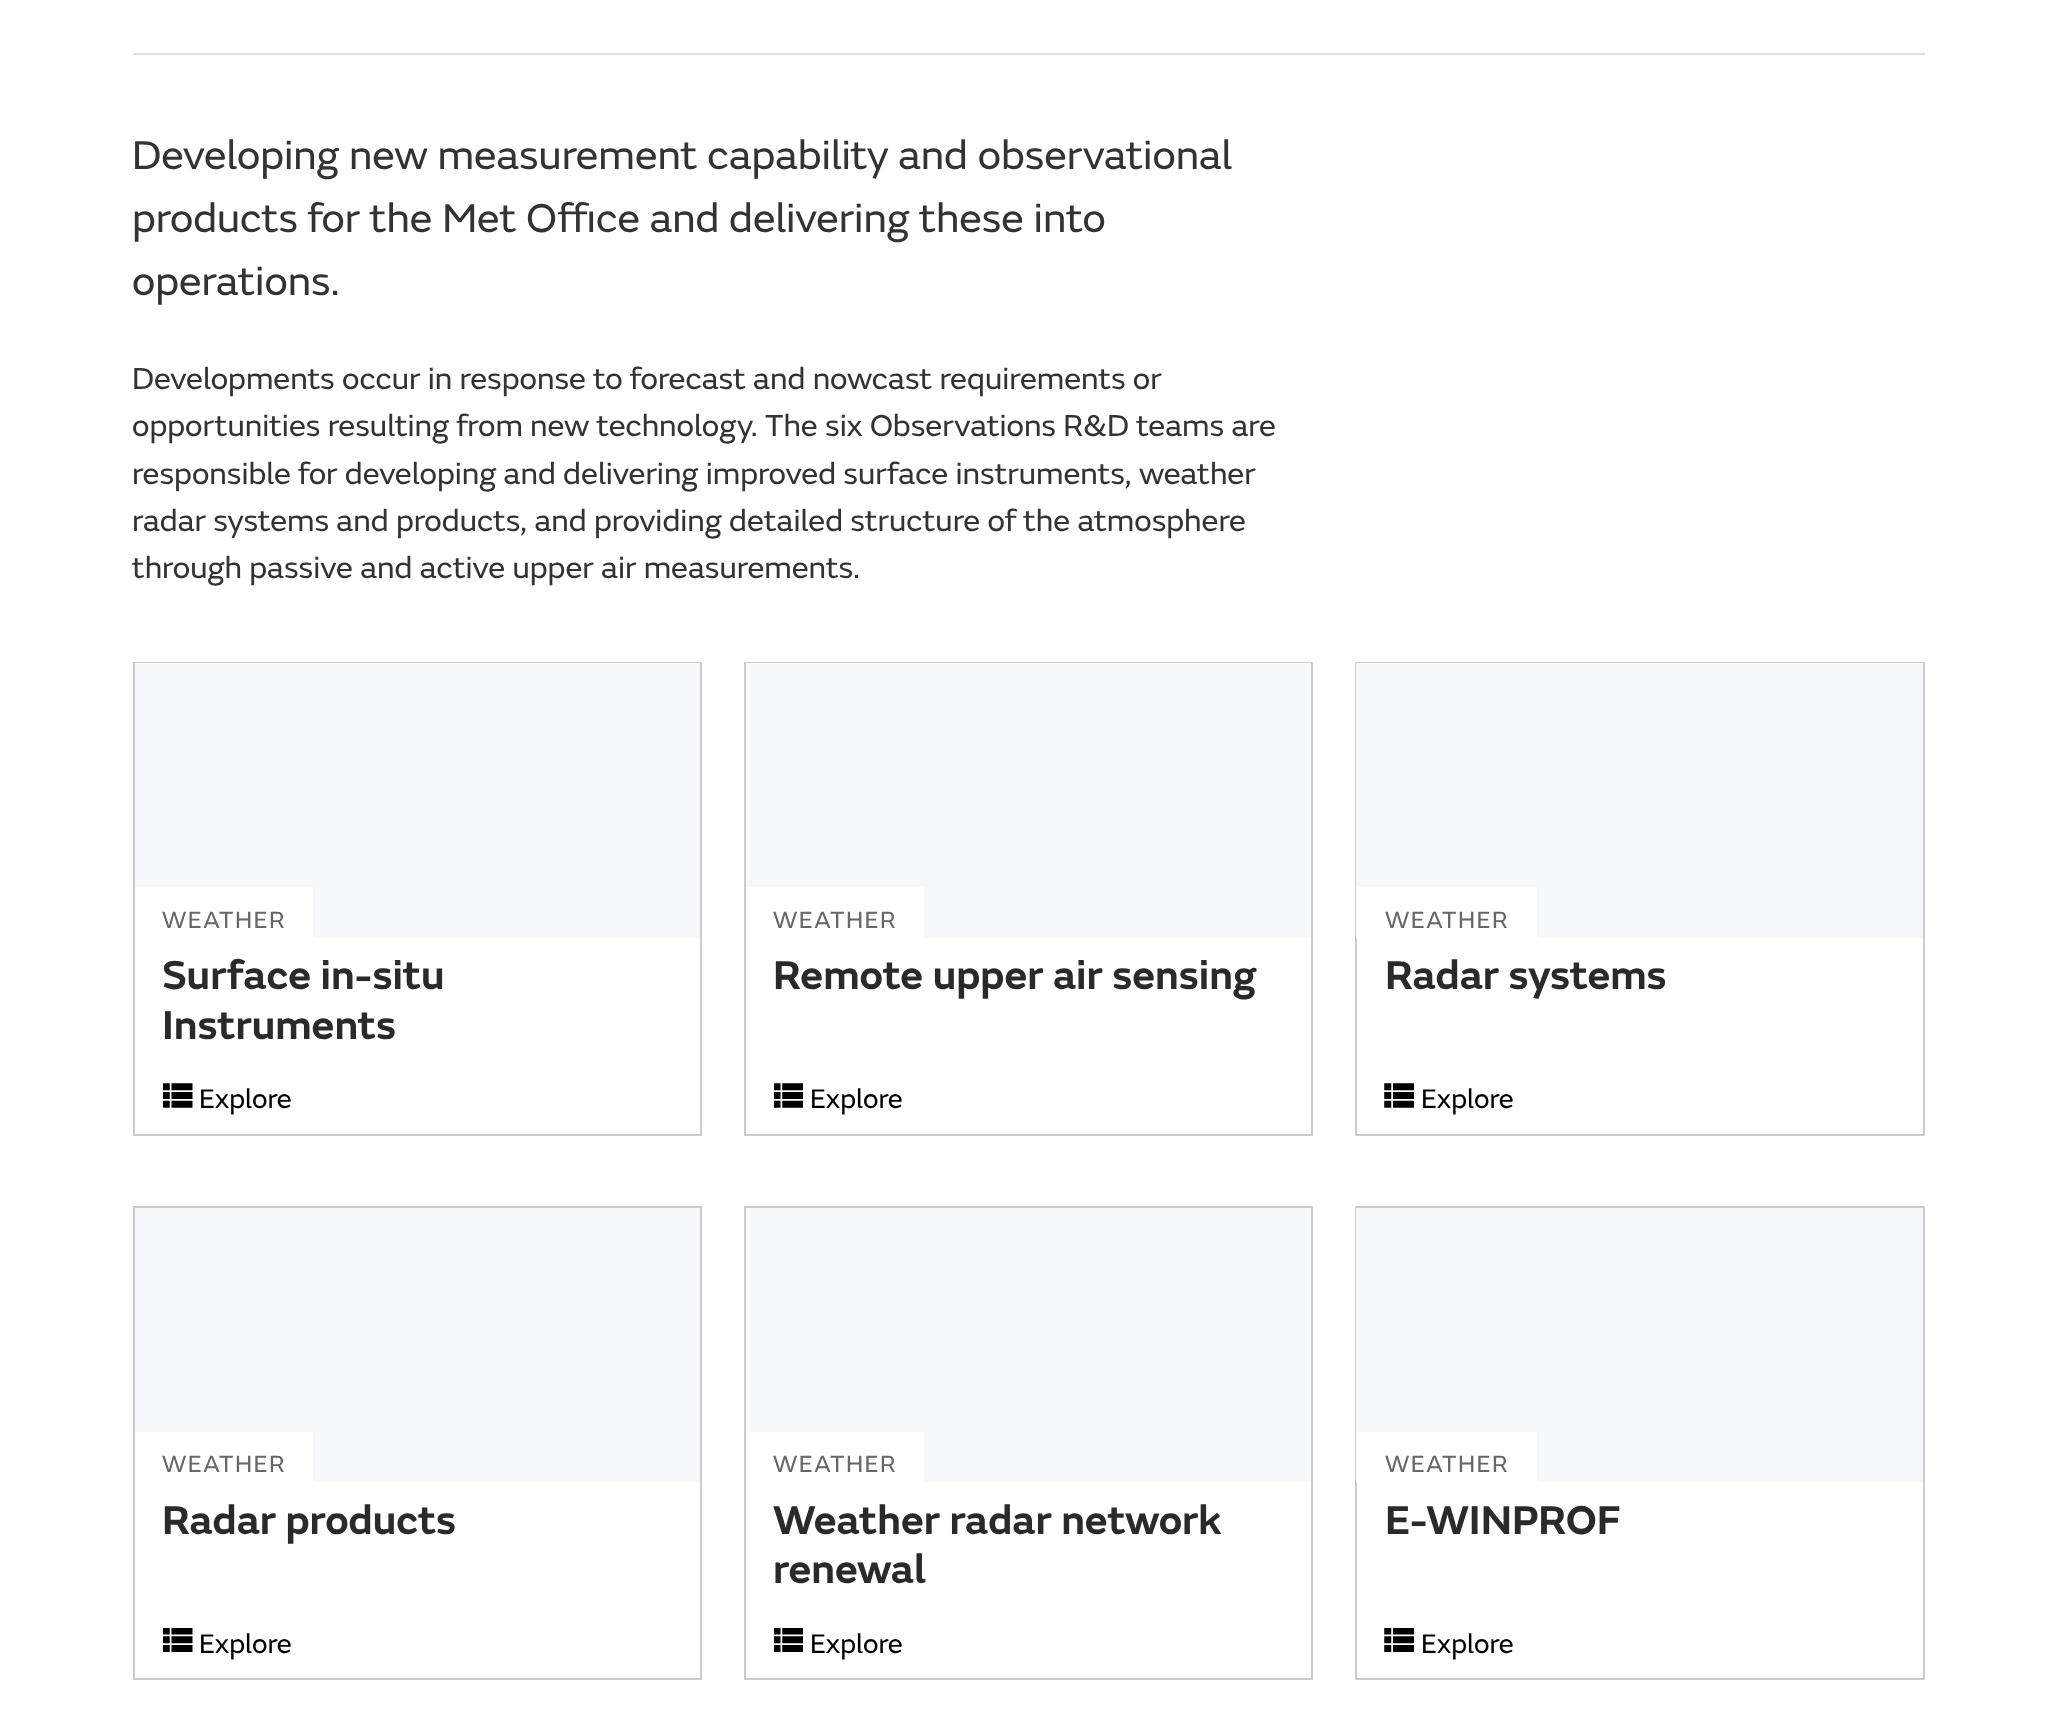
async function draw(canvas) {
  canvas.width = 2055
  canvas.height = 1720
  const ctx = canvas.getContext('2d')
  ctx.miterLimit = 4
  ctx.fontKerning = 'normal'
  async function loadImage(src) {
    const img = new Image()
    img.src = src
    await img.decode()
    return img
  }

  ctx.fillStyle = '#fff'
  ctx.fillRect(0, 0, 2055, 1720)
  ctx.fillStyle = '#ddd'
  ctx.fillRect(133, 53, 1792, 2)
  ctx.font = '42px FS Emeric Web'
  ctx.fillStyle = '#333'
  ctx.fillText('Developing new measurement capability and observational', 132, 169)
  ctx.fillText('products for the Met Office and delivering these into', 132, 232)
  ctx.fillText('operations.', 132, 295)
  ctx.font = '31.5px FS Emeric Web'
  ctx.fillText('Developments occur in response to forecast and nowcast requirements or', 132, 389)
  ctx.fillText('opportunities resulting from new technology. The six Observations R&D teams are', 132, 436)
  ctx.fillText('responsible for developing and delivering improved surface instruments, weather', 132, 484)
  ctx.fillText('radar systems and products, and providing detailed structure of the atmosphere', 132, 531)
  ctx.fillText('through passive and active upper air measurements.', 132, 578)
  ctx.strokeStyle = '#ccc'
  ctx.lineWidth = 2
  ctx.strokeRect(134, 663, 567, 472)
  ctx.fillStyle = '#f6f8fb'
  ctx.fillRect(135, 663, 565, 275)
  ctx.fillStyle = '#fff'
  ctx.fillRect(135, 887, 178, 51)
  ctx.letterSpacing = '1.5px'
  ctx.font = '24.5px FS Emeric Web'
  ctx.fillStyle = '#666'
  ctx.fillText('WEATHER', 162, 928)
  ctx.letterSpacing = '0px'
  ctx.font = '600 42px FS Emeric Web'
  ctx.fillStyle = '#2a2a2a'
  ctx.fillText('Surface in-situ', 162, 989)
  ctx.fillText('Instruments', 162, 1039)
  ctx.drawImage(await loadImage('image0.png'), 163, 1083, 30, 25)
  ctx.font = '28px FS Emeric Web'
  ctx.fillStyle = '#000'
  ctx.fillText('Explore', 199, 1108)
  ctx.strokeRect(745, 663, 567, 472)
  ctx.fillStyle = '#f6f8fb'
  ctx.fillRect(746, 663, 565, 275)
  ctx.fillStyle = '#fff'
  ctx.fillRect(746, 887, 178, 51)
  ctx.letterSpacing = '1.5px'
  ctx.font = '24.5px FS Emeric Web'
  ctx.fillStyle = '#666'
  ctx.fillText('WEATHER', 773, 928)
  ctx.letterSpacing = '0px'
  ctx.font = '600 42px FS Emeric Web'
  ctx.fillStyle = '#2a2a2a'
  ctx.fillText('Remote upper air sensing', 773, 989)
  ctx.drawImage(await loadImage('image1.png'), 774, 1083, 29, 25)
  ctx.font = '28px FS Emeric Web'
  ctx.fillStyle = '#000'
  ctx.fillText('Explore', 810, 1108)
  ctx.strokeRect(1356, 663, 568, 472)
  ctx.fillStyle = '#f6f8fb'
  ctx.fillRect(1356, 663, 567, 275)
  ctx.fillStyle = '#fff'
  ctx.fillRect(1356, 887, 181, 51)
  ctx.letterSpacing = '1.5px'
  ctx.font = '24.5px FS Emeric Web'
  ctx.fillStyle = '#666'
  ctx.fillText('WEATHER', 1385, 928)
  ctx.letterSpacing = '0px'
  ctx.font = '600 42px FS Emeric Web'
  ctx.fillStyle = '#2a2a2a'
  ctx.fillText('Radar systems', 1385, 989)
  ctx.drawImage(await loadImage('image2.png'), 1384, 1083, 30, 25)
  ctx.font = '28px FS Emeric Web'
  ctx.fillStyle = '#000'
  ctx.fillText('Explore', 1421, 1108)
  ctx.strokeRect(134, 1207, 567, 472)
  ctx.fillStyle = '#f6f8fb'
  ctx.fillRect(135, 1208, 565, 274)
  ctx.fillStyle = '#fff'
  ctx.fillRect(135, 1432, 178, 50)
  ctx.letterSpacing = '1.5px'
  ctx.font = '24.5px FS Emeric Web'
  ctx.fillStyle = '#666'
  ctx.fillText('WEATHER', 162, 1472)
  ctx.letterSpacing = '0px'
  ctx.font = '600 42px FS Emeric Web'
  ctx.fillStyle = '#2a2a2a'
  ctx.fillText('Radar products', 162, 1534)
  ctx.drawImage(await loadImage('image3.png'), 163, 1628, 30, 24)
  ctx.font = '28px FS Emeric Web'
  ctx.fillStyle = '#000'
  ctx.fillText('Explore', 199, 1653)
  ctx.strokeRect(745, 1207, 567, 472)
  ctx.fillStyle = '#f6f8fb'
  ctx.fillRect(746, 1208, 565, 274)
  ctx.fillStyle = '#fff'
  ctx.fillRect(746, 1432, 178, 50)
  ctx.letterSpacing = '1.5px'
  ctx.font = '24.5px FS Emeric Web'
  ctx.fillStyle = '#666'
  ctx.fillText('WEATHER', 773, 1472)
  ctx.letterSpacing = '0px'
  ctx.font = '600 42px FS Emeric Web'
  ctx.fillStyle = '#2a2a2a'
  ctx.fillText('Weather radar network', 773, 1534)
  ctx.fillText('renewal', 773, 1583)
  ctx.drawImage(await loadImage('image4.png'), 774, 1628, 29, 24)
  ctx.font = '28px FS Emeric Web'
  ctx.fillStyle = '#000'
  ctx.fillText('Explore', 810, 1653)
  ctx.strokeRect(1356, 1207, 568, 472)
  ctx.fillStyle = '#f6f8fb'
  ctx.fillRect(1356, 1208, 567, 274)
  ctx.fillStyle = '#fff'
  ctx.fillRect(1356, 1432, 181, 50)
  ctx.letterSpacing = '1.5px'
  ctx.font = '24.5px FS Emeric Web'
  ctx.fillStyle = '#666'
  ctx.fillText('WEATHER', 1385, 1472)
  ctx.letterSpacing = '0px'
  ctx.font = '600 42px FS Emeric Web'
  ctx.fillStyle = '#2a2a2a'
  ctx.fillText('E-WINPROF', 1385, 1534)
  ctx.drawImage(await loadImage('image5.png'), 1384, 1628, 30, 24)
  ctx.font = '28px FS Emeric Web'
  ctx.fillStyle = '#000'
  ctx.fillText('Explore', 1421, 1653)
}

draw(document.querySelector('canvas'))
